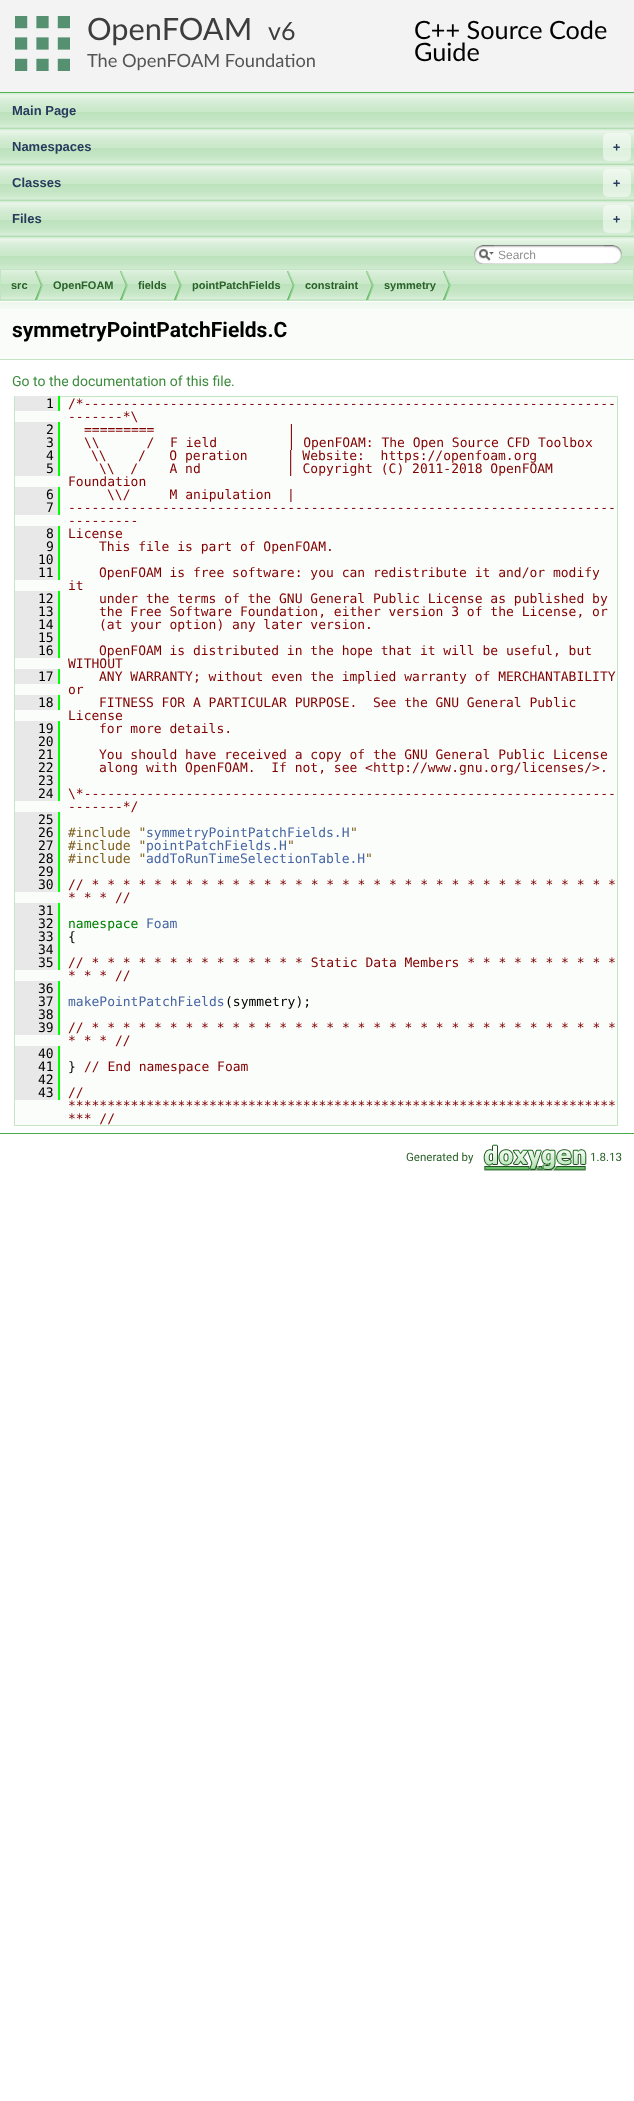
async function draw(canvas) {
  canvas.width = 634
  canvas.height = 2101
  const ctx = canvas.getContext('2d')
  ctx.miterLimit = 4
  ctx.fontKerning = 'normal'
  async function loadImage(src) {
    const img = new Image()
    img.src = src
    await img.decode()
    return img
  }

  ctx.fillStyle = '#fff'
  ctx.fillRect(0, 0, 634, 2101)
  ctx.fillStyle = '#f3f3f3'
  ctx.fillRect(0, 0, 634, 92)
  ctx.fillStyle = '#53b453'
  ctx.fillRect(0, 92, 634, 1)
  ctx.drawImage(await loadImage('image0.png'), 15, 16, 55, 55)
  ctx.font = '30.75px Lato'
  ctx.fillStyle = '#3d3d3d'
  ctx.fillText('OpenFOAM', 87, 40)
  ctx.font = '25px Lato'
  ctx.fillText('v6', 268, 40)
  ctx.font = '18.25px Lato'
  ctx.fillStyle = '#555'
  ctx.fillText('The OpenFOAM Foundation', 87, 67)
  ctx.font = '25.25px Lato'
  ctx.fillStyle = '#000'
  ctx.fillText('C++ Source Code', 414, 39)
  ctx.fillText('Guide', 414, 61)
  ctx.drawImage(await loadImage('image1.png'), 0, 93, 634, 176)
  ctx.font = 'bold 13px Liberation Sans'
  ctx.fillStyle = '#283a5d'
  ctx.fillText('Main Page', 12, 115)
  ctx.fillText('Namespaces', 12, 151)
  ctx.fillStyle = '#ffffff80'
  ctx.beginPath()
  ctx.roundRect(603, 133, 28, 28, 5)
  ctx.fill()
  ctx.font = 'bold 12px DejaVu Sans Mono'
  ctx.fillStyle = '#283a5d'
  ctx.fillText('+', 613, 151)
  ctx.font = 'bold 13px Liberation Sans'
  ctx.fillText('Classes', 12, 187)
  ctx.fillStyle = '#ffffff80'
  ctx.beginPath()
  ctx.roundRect(603, 169, 28, 28, 5)
  ctx.fill()
  ctx.font = 'bold 12px DejaVu Sans Mono'
  ctx.fillStyle = '#283a5d'
  ctx.fillText('+', 613, 187)
  ctx.font = 'bold 13px Liberation Sans'
  ctx.fillText('Files', 12, 223)
  ctx.fillStyle = '#ffffff80'
  ctx.beginPath()
  ctx.roundRect(603, 205, 28, 28, 5)
  ctx.fill()
  ctx.font = 'bold 12px DejaVu Sans Mono'
  ctx.fillStyle = '#283a5d'
  ctx.fillText('+', 613, 223)
  ctx.drawImage(await loadImage('image2.png'), 474, 245, 20, 19)
  ctx.drawImage(await loadImage('image3.png'), 479, 249, 15, 12)
  ctx.drawImage(await loadImage('image4.png'), 494, 245, 110, 19)
  ctx.font = '12px Liberation Sans'
  ctx.fillStyle = '#909090'
  ctx.fillText('Search', 498, 259)
  ctx.drawImage(await loadImage('image5.png'), 604, 245, 18, 19)
  ctx.drawImage(await loadImage('image6.png'), 1, 270, 632, 30)
  ctx.strokeStyle = '#c2e4c2'
  ctx.strokeRect(0.5, 269.5, 633, 31)
  ctx.drawImage(await loadImage('image7.png'), 35, 271, 8, 29)
  ctx.font = 'bold 11px Liberation Sans'
  ctx.fillStyle = '#2a612a'
  ctx.fillText('src', 11, 289)
  ctx.drawImage(await loadImage('image7.png'), 120, 271, 8, 29)
  ctx.fillText('OpenFOAM', 53, 289)
  ctx.drawImage(await loadImage('image7.png'), 174, 271, 8, 29)
  ctx.fillText('fields', 138, 289)
  ctx.drawImage(await loadImage('image7.png'), 287, 271, 8, 29)
  ctx.fillText('pointPatchFields', 192, 289)
  ctx.drawImage(await loadImage('image7.png'), 366, 271, 8, 29)
  ctx.fillText('constraint', 305, 289)
  ctx.drawImage(await loadImage('image7.png'), 443, 271, 8, 29)
  ctx.fillText('symmetry', 384, 289)
  ctx.fillStyle = '#f9fcf9'
  ctx.fillRect(0, 309, 634, 50)
  ctx.drawImage(await loadImage('image8.png'), 0, 301, 634, 8)
  ctx.fillStyle = '#c4e5c4'
  ctx.fillRect(0, 359, 634, 1)
  ctx.font = 'bold 21px Roboto'
  ctx.fillStyle = '#000'
  ctx.fillText('symmetryPointPatchFields.C', 12, 337)
  ctx.font = '14px Roboto'
  ctx.fillStyle = '#3d8c3d'
  ctx.fillText('Go to the documentation of this file.', 12, 386)
  ctx.fillStyle = '#fbfdfb'
  ctx.beginPath()
  ctx.rect(14.5, 396.5, 603, 729)
  ctx.fill()
  ctx.strokeStyle = '#c4e5c4'
  ctx.stroke()
  ctx.fillStyle = '#e8e8e8'
  ctx.fillRect(15, 396, 43, 15)
  ctx.font = '13px DejaVu Sans Mono'
  ctx.fillStyle = '#000'
  ctx.fillText('1', 46, 408)
  ctx.fillStyle = '#0f0'
  ctx.fillRect(58, 396, 2, 15)
  ctx.fillStyle = '#800000'
  ctx.fillText('/*--------------------------------------------------------------------', 68, 408)
  ctx.fillText('-------*\\', 68, 421)
  ctx.fillStyle = '#e8e8e8'
  ctx.fillRect(15, 422, 43, 54)
  ctx.fillStyle = '#000'
  ctx.fillText('2', 46, 434)
  ctx.fillStyle = '#0f0'
  ctx.fillRect(58, 422, 2, 54)
  ctx.fillStyle = '#800000'
  ctx.fillText('=========                 |', 84, 434)
  ctx.fillStyle = '#000'
  ctx.fillText('3', 46, 447)
  ctx.fillStyle = '#800000'
  ctx.fillText('\\\\      /  F ield         | OpenFOAM: The Open Source CFD Toolbox', 84, 447)
  ctx.fillStyle = '#000'
  ctx.fillText('4', 46, 460)
  ctx.fillStyle = '#800000'
  ctx.fillText('\\\\    /   O peration     | Website:  https://openfoam.org', 91, 460)
  ctx.fillStyle = '#000'
  ctx.fillText('5', 46, 473)
  ctx.fillStyle = '#800000'
  ctx.fillText('\\\\  /    A nd           | Copyright (C) 2011-2018 OpenFOAM', 99, 473)
  ctx.fillText('Foundation', 68, 486)
  ctx.fillStyle = '#e8e8e8'
  ctx.fillRect(15, 487, 43, 28)
  ctx.fillStyle = '#000'
  ctx.fillText('6', 46, 499)
  ctx.fillStyle = '#0f0'
  ctx.fillRect(58, 487, 2, 28)
  ctx.fillStyle = '#800000'
  ctx.fillText('\\\\/     M anipulation  |', 107, 499)
  ctx.fillStyle = '#000'
  ctx.fillText('7', 46, 512)
  ctx.fillStyle = '#800000'
  ctx.fillText('----------------------------------------------------------------------', 68, 512)
  ctx.fillText('---------', 68, 525)
  ctx.fillStyle = '#e8e8e8'
  ctx.fillRect(15, 526, 43, 54)
  ctx.fillStyle = '#000'
  ctx.fillText('8', 46, 538)
  ctx.fillStyle = '#0f0'
  ctx.fillRect(58, 526, 2, 54)
  ctx.fillStyle = '#800000'
  ctx.fillText('License', 68, 538)
  ctx.fillStyle = '#000'
  ctx.fillText('9', 46, 551)
  ctx.fillStyle = '#800000'
  ctx.fillText('This file is part of OpenFOAM.', 99, 551)
  ctx.fillStyle = '#000'
  ctx.fillText('10', 38, 564)
  ctx.fillText('11', 38, 577)
  ctx.fillStyle = '#800000'
  ctx.fillText('OpenFOAM is free software: you can redistribute it and/or modify', 99, 577)
  ctx.fillText('it', 68, 590)
  ctx.fillStyle = '#e8e8e8'
  ctx.fillRect(15, 591, 43, 67)
  ctx.fillStyle = '#000'
  ctx.fillText('12', 38, 603)
  ctx.fillStyle = '#0f0'
  ctx.fillRect(58, 591, 2, 67)
  ctx.fillStyle = '#800000'
  ctx.fillText('under the terms of the GNU General Public License as published by', 99, 603)
  ctx.fillStyle = '#000'
  ctx.fillText('13', 38, 616)
  ctx.fillStyle = '#800000'
  ctx.fillText('the Free Software Foundation, either version 3 of the License, or', 99, 616)
  ctx.fillStyle = '#000'
  ctx.fillText('14', 38, 629)
  ctx.fillStyle = '#800000'
  ctx.fillText('(at your option) any later version.', 99, 629)
  ctx.fillStyle = '#000'
  ctx.fillText('15', 38, 642)
  ctx.fillText('16', 38, 655)
  ctx.fillStyle = '#800000'
  ctx.fillText('OpenFOAM is distributed in the hope that it will be useful, but', 99, 655)
  ctx.fillText('WITHOUT', 68, 668)
  ctx.fillStyle = '#e8e8e8'
  ctx.fillRect(15, 669, 43, 15)
  ctx.fillStyle = '#000'
  ctx.fillText('17', 38, 681)
  ctx.fillStyle = '#0f0'
  ctx.fillRect(58, 669, 2, 15)
  ctx.fillStyle = '#800000'
  ctx.fillText('ANY WARRANTY; without even the implied warranty of MERCHANTABILITY', 99, 681)
  ctx.fillText('or', 68, 694)
  ctx.fillStyle = '#e8e8e8'
  ctx.fillRect(15, 695, 43, 15)
  ctx.fillStyle = '#000'
  ctx.fillText('18', 38, 707)
  ctx.fillStyle = '#0f0'
  ctx.fillRect(58, 695, 2, 15)
  ctx.fillStyle = '#800000'
  ctx.fillText('FITNESS FOR A PARTICULAR PURPOSE.  See the GNU General Public', 99, 707)
  ctx.fillText('License', 68, 720)
  ctx.fillStyle = '#e8e8e8'
  ctx.fillRect(15, 721, 43, 80)
  ctx.fillStyle = '#000'
  ctx.fillText('19', 38, 733)
  ctx.fillStyle = '#0f0'
  ctx.fillRect(58, 721, 2, 80)
  ctx.fillStyle = '#800000'
  ctx.fillText('for more details.', 99, 733)
  ctx.fillStyle = '#000'
  ctx.fillText('20', 38, 746)
  ctx.fillText('21', 38, 759)
  ctx.fillStyle = '#800000'
  ctx.fillText('You should have received a copy of the GNU General Public License', 99, 759)
  ctx.fillStyle = '#000'
  ctx.fillText('22', 38, 772)
  ctx.fillStyle = '#800000'
  ctx.fillText('along with OpenFOAM.  If not, see <http://www.gnu.org/licenses/>.', 99, 772)
  ctx.fillStyle = '#000'
  ctx.fillText('23', 38, 785)
  ctx.fillText('24', 38, 798)
  ctx.fillStyle = '#800000'
  ctx.fillText('\\*--------------------------------------------------------------------', 68, 798)
  ctx.fillText('-------*/', 68, 811)
  ctx.fillStyle = '#e8e8e8'
  ctx.fillRect(15, 812, 43, 80)
  ctx.fillStyle = '#000'
  ctx.fillText('25', 38, 824)
  ctx.fillStyle = '#0f0'
  ctx.fillRect(58, 812, 2, 80)
  ctx.fillStyle = '#000'
  ctx.fillText('26', 38, 837)
  ctx.fillStyle = '#806020'
  ctx.fillText('#include "', 68, 837)
  ctx.fillStyle = '#4665a2'
  ctx.fillText('symmetryPointPatchFields.H', 146, 837)
  ctx.fillStyle = '#806020'
  ctx.fillText('"', 350, 837)
  ctx.fillStyle = '#000'
  ctx.fillText('27', 38, 850)
  ctx.fillStyle = '#806020'
  ctx.fillText('#include "', 68, 850)
  ctx.fillStyle = '#4665a2'
  ctx.fillText('pointPatchFields.H', 146, 850)
  ctx.fillStyle = '#806020'
  ctx.fillText('"', 287, 850)
  ctx.fillStyle = '#000'
  ctx.fillText('28', 38, 863)
  ctx.fillStyle = '#806020'
  ctx.fillText('#include "', 68, 863)
  ctx.fillStyle = '#4665a2'
  ctx.fillText('addToRunTimeSelectionTable.H', 146, 863)
  ctx.fillStyle = '#806020'
  ctx.fillText('"', 365, 863)
  ctx.fillStyle = '#000'
  ctx.fillText('29', 38, 876)
  ctx.fillText('30', 38, 889)
  ctx.fillStyle = '#800000'
  ctx.fillText('// * * * * * * * * * * * * * * * * * * * * * * * * * * * * * * * * * *', 68, 889)
  ctx.fillText('* * * //', 68, 902)
  ctx.fillStyle = '#e8e8e8'
  ctx.fillRect(15, 903, 43, 67)
  ctx.fillStyle = '#000'
  ctx.fillText('31', 38, 915)
  ctx.fillStyle = '#0f0'
  ctx.fillRect(58, 903, 2, 67)
  ctx.fillStyle = '#000'
  ctx.fillText('32', 38, 928)
  ctx.fillStyle = '#008000'
  ctx.fillText('namespace', 68, 928)
  ctx.fillStyle = '#4665a2'
  ctx.fillText('Foam', 146, 928)
  ctx.fillStyle = '#000'
  ctx.fillText('33', 38, 941)
  ctx.fillText('{', 68, 941)
  ctx.fillText('34', 38, 954)
  ctx.fillText('35', 38, 967)
  ctx.fillStyle = '#800000'
  ctx.fillText('// * * * * * * * * * * * * * * Static Data Members * * * * * * * * * *', 68, 967)
  ctx.fillText('* * * //', 68, 980)
  ctx.fillStyle = '#e8e8e8'
  ctx.fillRect(15, 981, 43, 54)
  ctx.fillStyle = '#000'
  ctx.fillText('36', 38, 993)
  ctx.fillStyle = '#0f0'
  ctx.fillRect(58, 981, 2, 54)
  ctx.fillStyle = '#000'
  ctx.fillText('37', 38, 1006)
  ctx.fillStyle = '#4665a2'
  ctx.fillText('makePointPatchFields', 68, 1006)
  ctx.fillStyle = '#000'
  ctx.fillText('(symmetry);', 225, 1006)
  ctx.fillText('38', 38, 1019)
  ctx.fillText('39', 38, 1032)
  ctx.fillStyle = '#800000'
  ctx.fillText('// * * * * * * * * * * * * * * * * * * * * * * * * * * * * * * * * * *', 68, 1032)
  ctx.fillText('* * * //', 68, 1045)
  ctx.fillStyle = '#e8e8e8'
  ctx.fillRect(15, 1046, 43, 54)
  ctx.fillStyle = '#000'
  ctx.fillText('40', 38, 1058)
  ctx.fillStyle = '#0f0'
  ctx.fillRect(58, 1046, 2, 54)
  ctx.fillStyle = '#000'
  ctx.fillText('41', 38, 1071)
  ctx.fillText('}', 68, 1071)
  ctx.fillStyle = '#800000'
  ctx.fillText('// End namespace Foam', 84, 1071)
  ctx.fillStyle = '#000'
  ctx.fillText('42', 38, 1084)
  ctx.fillText('43', 38, 1097)
  ctx.fillStyle = '#800000'
  ctx.fillText('//', 68, 1097)
  ctx.fillText('**********************************************************************', 68, 1110)
  ctx.fillText('*** //', 68, 1123)
  ctx.fillStyle = '#4aaa4a'
  ctx.fillRect(0, 1133, 634, 1)
  ctx.font = '11.5px Roboto'
  ctx.fillStyle = '#2a612a'
  ctx.fillText('Generated by', 406, 1161)
  ctx.drawImage(await loadImage('image9.png'), 483, 1144, 104, 27)
  ctx.fillText('1.8.13', 590, 1161)
}

draw(document.querySelector('canvas'))
